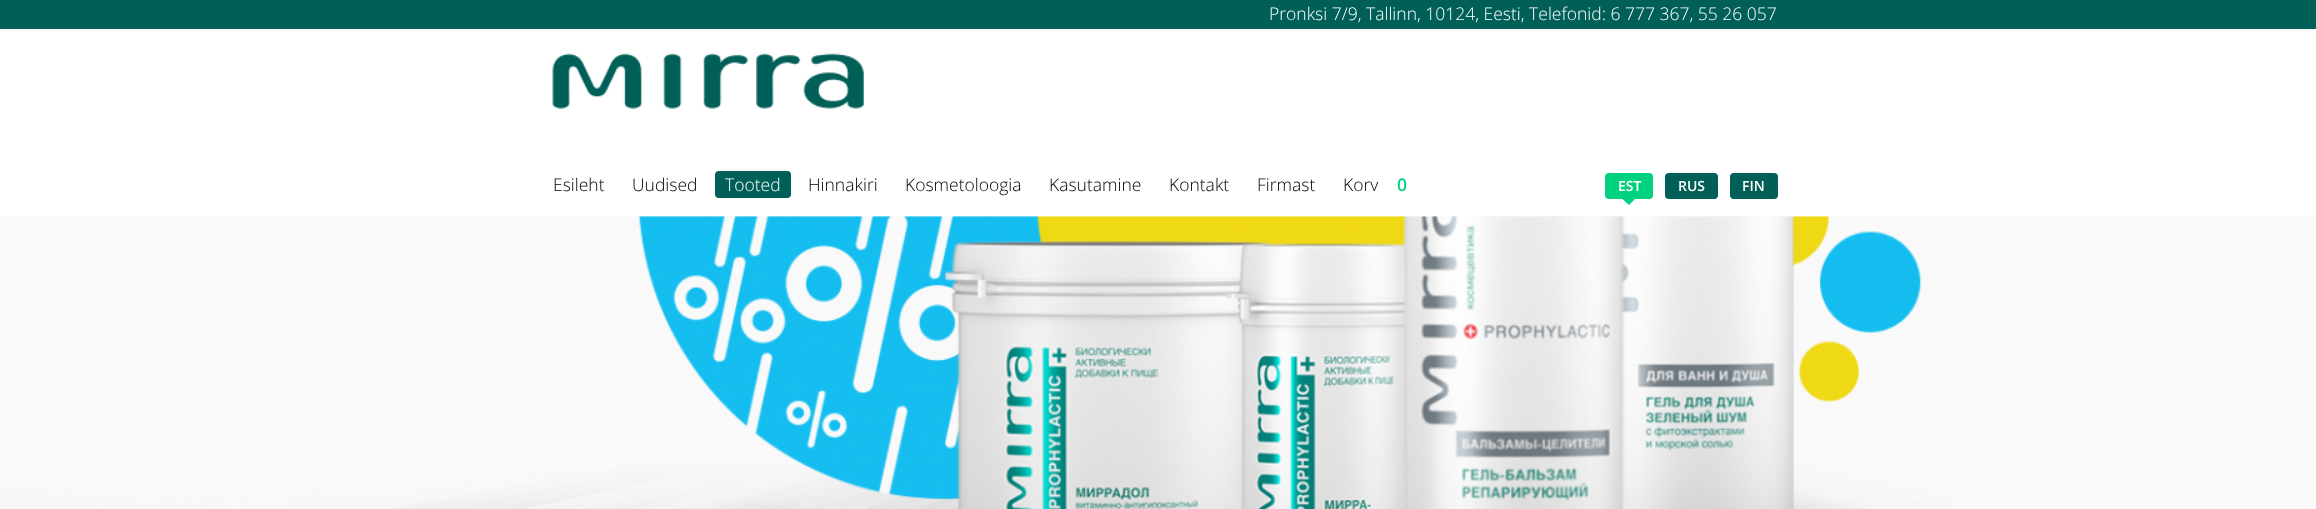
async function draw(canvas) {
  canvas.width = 2316
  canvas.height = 509
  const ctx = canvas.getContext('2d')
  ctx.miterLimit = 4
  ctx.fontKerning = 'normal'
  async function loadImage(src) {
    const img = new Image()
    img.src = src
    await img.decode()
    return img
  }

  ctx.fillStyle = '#fff'
  ctx.fillRect(0, 0, 2316, 509)
  ctx.fillStyle = '#006058'
  ctx.fillRect(0, 0, 2316, 29)
  ctx.font = '300 17.5px Open Sans'
  ctx.fillStyle = '#fff'
  ctx.fillText('Pronksi 7/9, Tallinn, 10124, Eesti, Telefonid: 6 777 367, 55 26 057', 1269, 20)
  ctx.drawImage(await loadImage('image0.png'), 552, 53, 312, 56)
  ctx.fillStyle = '#000'
  ctx.fillText('Esileht', 553, 191)
  ctx.fillText('Uudised', 632, 191)
  ctx.fillStyle = '#006058'
  ctx.beginPath()
  ctx.roundRect(715, 171, 76, 27, 4)
  ctx.fill()
  ctx.fillStyle = '#fff'
  ctx.fillText('Tooted', 725, 191)
  ctx.fillStyle = '#000'
  ctx.fillText('Hinnakiri', 808, 191)
  ctx.fillText('Kosmetoloogia', 905, 191)
  ctx.fillText('Kasutamine', 1049, 191)
  ctx.fillText('Kontakt', 1169, 191)
  ctx.fillText('Firmast', 1257, 191)
  ctx.fillText('Korv', 1343, 191)
  ctx.font = '600 17.5px Open Sans'
  ctx.fillStyle = '#00d280'
  ctx.fillText('0', 1397, 191)
  ctx.beginPath()
  ctx.roundRect(1605, 173, 48, 26, 4)
  ctx.fill()
  ctx.font = '600 14px Open Sans'
  ctx.fillStyle = '#fff'
  ctx.fillText('EST', 1618, 191)
  ctx.fillStyle = '#00d280'
  ctx.beginPath()
  ctx.moveTo(1622.5, 199)
  ctx.lineTo(1635, 199)
  ctx.lineTo(1629, 205)
  ctx.closePath()
  ctx.fill()
  ctx.fillStyle = '#006058'
  ctx.beginPath()
  ctx.roundRect(1665, 173, 53, 26, 4)
  ctx.fill()
  ctx.fillStyle = '#fff'
  ctx.fillText('RUS', 1678, 191)
  ctx.fillStyle = '#006058'
  ctx.beginPath()
  ctx.roundRect(1730, 173, 48, 26, 4)
  ctx.fill()
  ctx.fillStyle = '#fff'
  ctx.fillText('FIN', 1742, 191)
  ctx.fillStyle = '#fafafa'
  ctx.fillRect(0, 216, 2316, 293)
  ctx.drawImage(await loadImage('image1.png'), 0, 216, 1951, 293)
}

draw(document.querySelector('canvas'))
